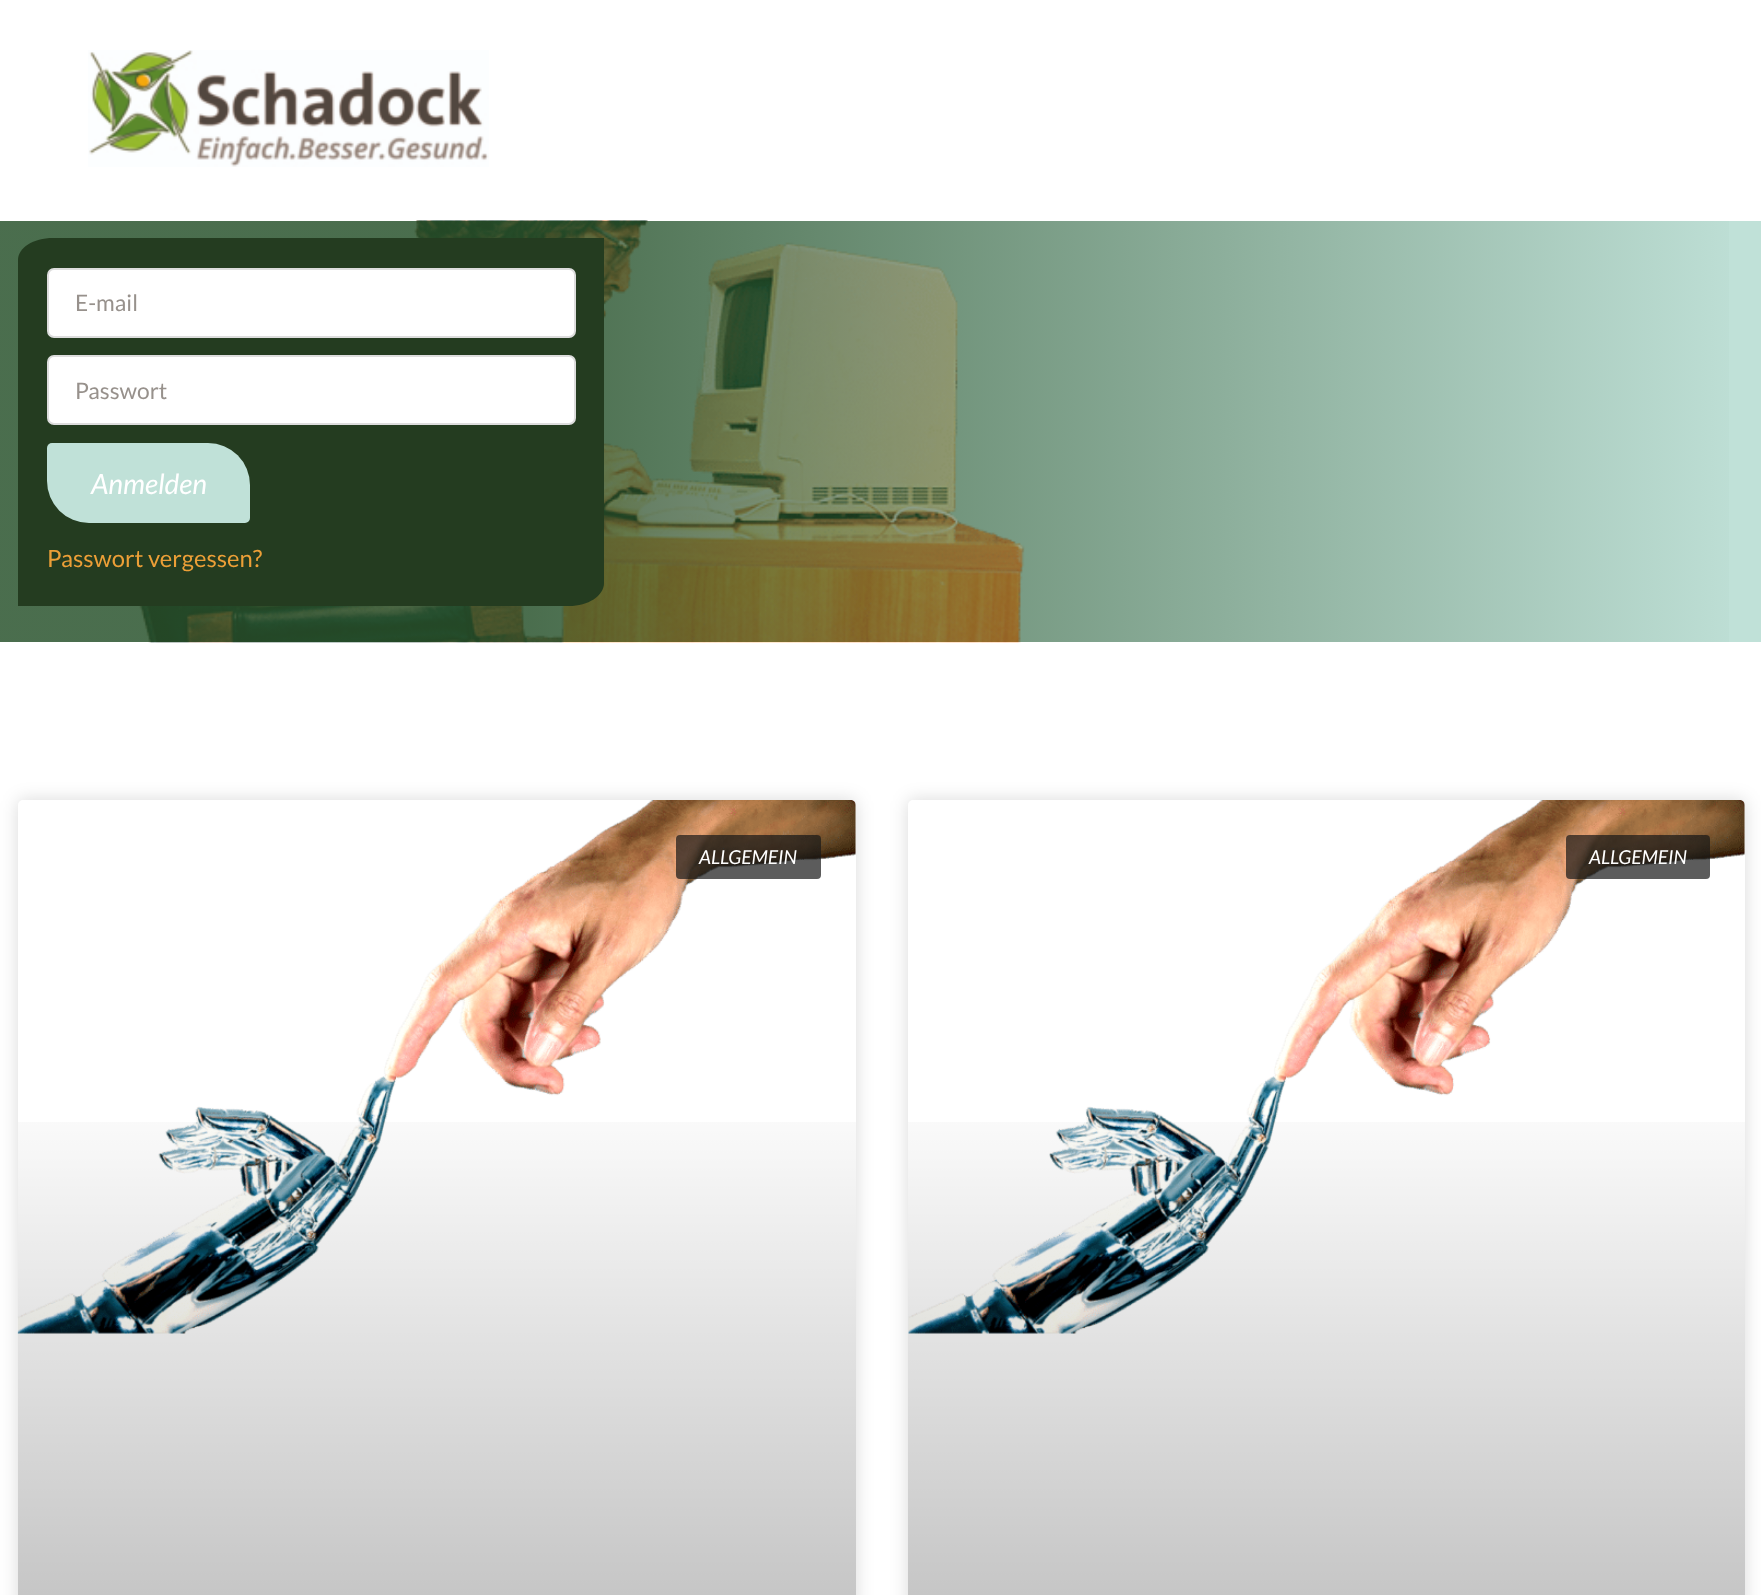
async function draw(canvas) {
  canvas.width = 1761
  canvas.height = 1595
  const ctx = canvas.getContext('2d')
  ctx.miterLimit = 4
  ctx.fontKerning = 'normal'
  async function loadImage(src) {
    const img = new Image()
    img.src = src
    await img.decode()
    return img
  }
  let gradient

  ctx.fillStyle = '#fff'
  ctx.fillRect(0, 0, 1761, 1595)
  ctx.drawImage(await loadImage('image0.png'), 88, 50, 401, 117)
  ctx.fillStyle = '#c0e1d8'
  ctx.fillRect(0, 221, 1761, 421)
  ctx.drawImage(await loadImage('image1.png'), 139, 220, 886, 423)
  gradient = ctx.createLinearGradient(0, 431, 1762, 431)
  gradient.addColorStop(0.3, '#2d512bcc')
  gradient.addColorStop(1, '#2d512b00')
  ctx.fillStyle = gradient
  ctx.fillRect(0, 221, 1729, 421)
  ctx.fillStyle = '#243c20'
  ctx.beginPath()
  ctx.moveTo(53, 238)
  ctx.lineTo(604, 238)
  ctx.lineTo(604, 583)
  ctx.bezierCurveTo(604, 596, 588, 606, 569, 606)
  ctx.lineTo(18, 606)
  ctx.lineTo(18, 260)
  ctx.bezierCurveTo(18, 248, 33, 238, 53, 238)
  ctx.closePath()
  ctx.fill()
  ctx.fillStyle = '#fff'
  ctx.beginPath()
  ctx.roundRect(48, 269, 527, 68, 6)
  ctx.fill()
  ctx.strokeStyle = '#ddd'
  ctx.lineWidth = 2
  ctx.stroke()
  ctx.font = '22.75px Lato'
  ctx.fillStyle = '#97918c'
  ctx.fillText('E-mail', 75, 311)
  ctx.fillStyle = '#fff'
  ctx.beginPath()
  ctx.roundRect(48, 356, 527, 68, 6)
  ctx.fill()
  ctx.stroke()
  ctx.fillStyle = '#97918c'
  ctx.fillText('Passwort', 75, 399)
  ctx.fillStyle = '#c0e1d8'
  ctx.beginPath()
  ctx.roundRect(47, 443, 203, 80, [5, 42, 5, 42])
  ctx.fill()
  ctx.font = 'italic 28px Lato'
  ctx.fillStyle = '#fff'
  ctx.fillText('Anmelden', 91, 494)
  ctx.font = '23.75px Lato'
  ctx.fillStyle = '#ec9f37'
  ctx.fillText('Passwort vergessen?', 47, 567)
  ctx.fillStyle = '#00000026'
  ctx.filter = 'blur(9px)'
  ctx.beginPath()
  ctx.roundRect(18, 800, 838, 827, 5)
  ctx.fill()
  ctx.filter = 'none'
  ctx.fillStyle = '#fff'
  ctx.beginPath()
  ctx.roundRect(18, 800, 838, 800, 5)
  ctx.fill()
  ctx.drawImage(await loadImage('image2.png'), 17, 800, 839, 534)
  gradient = ctx.createLinearGradient(437, 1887, 437, 800)
  gradient.addColorStop(0, '#00000059')
  gradient.addColorStop(0.75, '#00000000')
  ctx.fillStyle = gradient
  ctx.fillRect(18, 1122, 838, 473)
  ctx.fillStyle = '#171717b3'
  ctx.beginPath()
  ctx.roundRect(676, 835, 145, 44, 4)
  ctx.fill()
  ctx.font = 'italic 19.25px Lato'
  ctx.fillStyle = '#fff'
  ctx.fillText('ALLGEMEIN', 699, 864)
  ctx.fillStyle = '#00000026'
  ctx.filter = 'blur(9px)'
  ctx.beginPath()
  ctx.roundRect(908, 800, 837, 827, 5)
  ctx.fill()
  ctx.filter = 'none'
  ctx.fillStyle = '#fff'
  ctx.beginPath()
  ctx.roundRect(908, 800, 837, 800, 5)
  ctx.fill()
  ctx.drawImage(await loadImage('image3.png'), 908, 800, 837, 534)
  gradient = ctx.createLinearGradient(1327, 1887, 1327, 800)
  gradient.addColorStop(0, '#00000059')
  gradient.addColorStop(0.75, '#00000000')
  ctx.fillStyle = gradient
  ctx.fillRect(908, 1122, 837, 473)
  ctx.fillStyle = '#171717b3'
  ctx.beginPath()
  ctx.roundRect(1566, 835, 144, 44, 4)
  ctx.fill()
  ctx.fillStyle = '#fff'
  ctx.fillText('ALLGEMEIN', 1589, 864)
}

draw(document.querySelector('canvas'))
